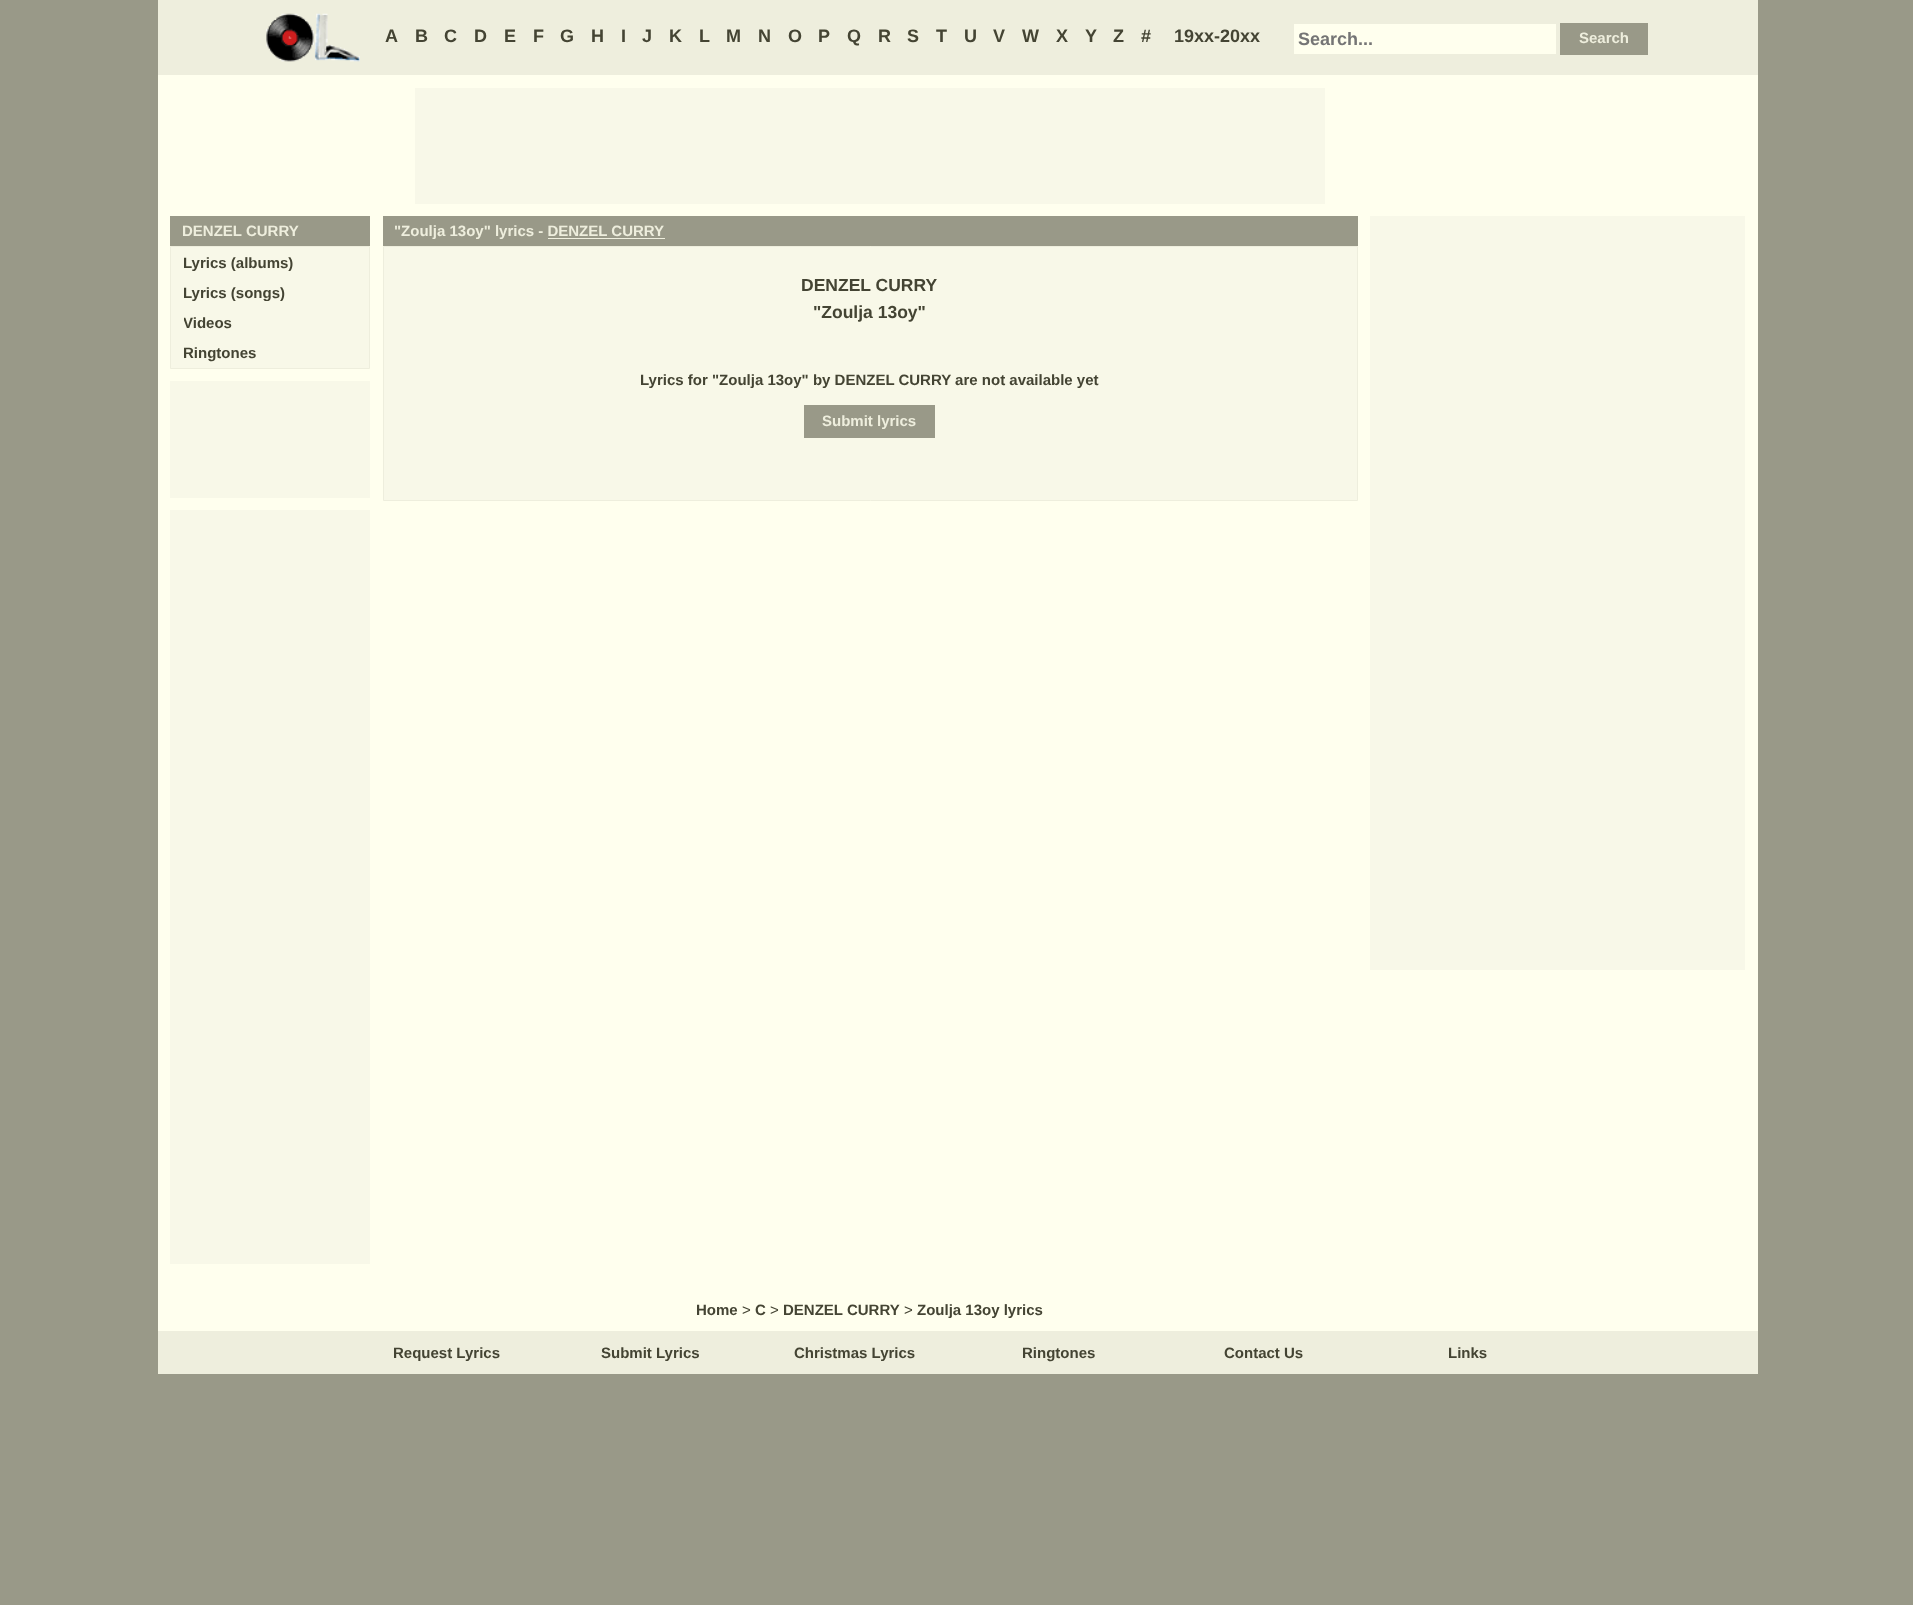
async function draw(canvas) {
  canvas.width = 1913
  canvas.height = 1605
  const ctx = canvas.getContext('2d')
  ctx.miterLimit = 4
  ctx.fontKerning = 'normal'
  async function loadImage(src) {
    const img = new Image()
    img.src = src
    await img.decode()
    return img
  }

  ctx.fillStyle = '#998'
  ctx.fillRect(0, 0, 1913, 1605)
  ctx.fillStyle = '#ffe'
  ctx.fillRect(158, 75, 1600, 1256)
  ctx.fillStyle = '#eed'
  ctx.fillRect(158, 0, 1600, 75)
  ctx.drawImage(await loadImage('image0.png'), 266, 13, 94, 49)
  ctx.font = 'bold 18px Liberation Sans'
  ctx.fillStyle = '#443'
  ctx.fillText('A', 385, 42)
  ctx.fillText('B', 415, 42)
  ctx.fillText('C', 444, 42)
  ctx.fillText('D', 474, 42)
  ctx.fillText('E', 504, 42)
  ctx.fillText('F', 533, 42)
  ctx.fillText('G', 560, 42)
  ctx.fillText('H', 591, 42)
  ctx.fillText('I', 621, 42)
  ctx.fillText('J', 642, 42)
  ctx.fillText('K', 669, 42)
  ctx.fillText('L', 699, 42)
  ctx.fillText('M', 726, 42)
  ctx.fillText('N', 758, 42)
  ctx.fillText('O', 788, 42)
  ctx.fillText('P', 818, 42)
  ctx.fillText('Q', 847, 42)
  ctx.fillText('R', 878, 42)
  ctx.fillText('S', 907, 42)
  ctx.fillText('T', 936, 42)
  ctx.fillText('U', 964, 42)
  ctx.fillText('V', 993, 42)
  ctx.fillText('W', 1022, 42)
  ctx.fillText('X', 1056, 42)
  ctx.fillText('Y', 1085, 42)
  ctx.fillText('Z', 1113, 42)
  ctx.fillText('#', 1141, 42)
  ctx.fillText('19xx-20xx', 1174, 42)
  ctx.fillStyle = '#ffe'
  ctx.fillRect(1294, 24, 262, 30)
  ctx.fillStyle = '#757575'
  ctx.fillText('Search...', 1298, 45)
  ctx.fillStyle = '#998'
  ctx.fillRect(1560, 23, 88, 32)
  ctx.font = 'bold 15px Liberation Sans'
  ctx.fillStyle = '#eed'
  ctx.fillText('Search', 1579, 43)
  ctx.fillStyle = '#f8f8e8'
  ctx.fillRect(415, 88, 910, 116)
  ctx.fillStyle = '#998'
  ctx.fillRect(170, 216, 200, 30)
  ctx.fillStyle = '#eed'
  ctx.fillText('DENZEL CURRY', 182, 236)
  ctx.fillStyle = '#f8f8e8'
  ctx.beginPath()
  ctx.rect(170.5, 246.5, 199, 122)
  ctx.fill()
  ctx.strokeStyle = '#eed'
  ctx.stroke()
  ctx.save()
  ctx.beginPath()
  ctx.rect(184, 254, 110, 17)
  ctx.clip()
  ctx.fillStyle = '#443'
  ctx.fillText('Lyrics (albums)', 183, 268)
  ctx.restore()
  ctx.save()
  ctx.beginPath()
  ctx.rect(184, 284, 101, 17)
  ctx.clip()
  ctx.fillStyle = '#443'
  ctx.fillText('Lyrics (songs)', 183, 298)
  ctx.restore()
  ctx.save()
  ctx.beginPath()
  ctx.rect(184, 314, 49, 17)
  ctx.clip()
  ctx.fillStyle = '#443'
  ctx.fillText('Videos', 183, 328)
  ctx.restore()
  ctx.fillStyle = '#443'
  ctx.fillText('Ringtones', 183, 358)
  ctx.fillStyle = '#f8f8e8'
  ctx.fillRect(170, 381, 200, 117)
  ctx.fillRect(170, 510, 200, 754)
  ctx.fillStyle = '#998'
  ctx.fillRect(383, 216, 975, 30)
  ctx.fillStyle = '#eed'
  ctx.fillText('"Zoulja 13oy" lyrics - DENZEL CURRY', 394, 236)
  ctx.fillRect(548, 238, 117, 1)
  ctx.fillStyle = '#f8f8e8'
  ctx.beginPath()
  ctx.rect(383.5, 246.5, 974, 254)
  ctx.fill()
  ctx.stroke()
  ctx.font = 'bold 17.5px Liberation Sans'
  ctx.fillStyle = '#443'
  ctx.fillText('DENZEL CURRY', 801, 291)
  ctx.fillText('"Zoulja 13oy"', 813, 318)
  ctx.font = 'bold 15px Liberation Sans'
  ctx.fillText('Lyrics for "Zoulja 13oy" by DENZEL CURRY are not available yet', 640, 385)
  ctx.fillStyle = '#998'
  ctx.fillRect(804, 405, 131, 33)
  ctx.fillStyle = '#eed'
  ctx.fillText('Submit lyrics', 822, 426)
  ctx.fillStyle = '#f8f8e8'
  ctx.fillRect(1370, 216, 375, 754)
  ctx.fillStyle = '#443'
  ctx.fillText('Home', 696, 1315)
  ctx.font = '15px Liberation Sans'
  ctx.fillText('>', 742, 1315)
  ctx.font = 'bold 15px Liberation Sans'
  ctx.fillText('C', 755, 1315)
  ctx.font = '15px Liberation Sans'
  ctx.fillText('>', 770, 1315)
  ctx.font = 'bold 15px Liberation Sans'
  ctx.fillText('DENZEL CURRY', 783, 1315)
  ctx.font = '15px Liberation Sans'
  ctx.fillText('>', 904, 1315)
  ctx.font = 'bold 15px Liberation Sans'
  ctx.fillText('Zoulja 13oy lyrics', 917, 1315)
  ctx.fillStyle = '#eed'
  ctx.fillRect(158, 1331, 1600, 43)
  ctx.save()
  ctx.beginPath()
  ctx.rect(393, 1344, 107, 17)
  ctx.clip()
  ctx.fillStyle = '#443'
  ctx.fillText('Request Lyrics', 393, 1358)
  ctx.restore()
  ctx.fillStyle = '#443'
  ctx.fillText('Submit Lyrics', 601, 1358)
  ctx.fillText('Christmas Lyrics', 794, 1358)
  ctx.fillText('Ringtones', 1022, 1358)
  ctx.fillText('Contact Us', 1224, 1358)
  ctx.fillText('Links', 1448, 1358)
}

draw(document.querySelector('canvas'))
